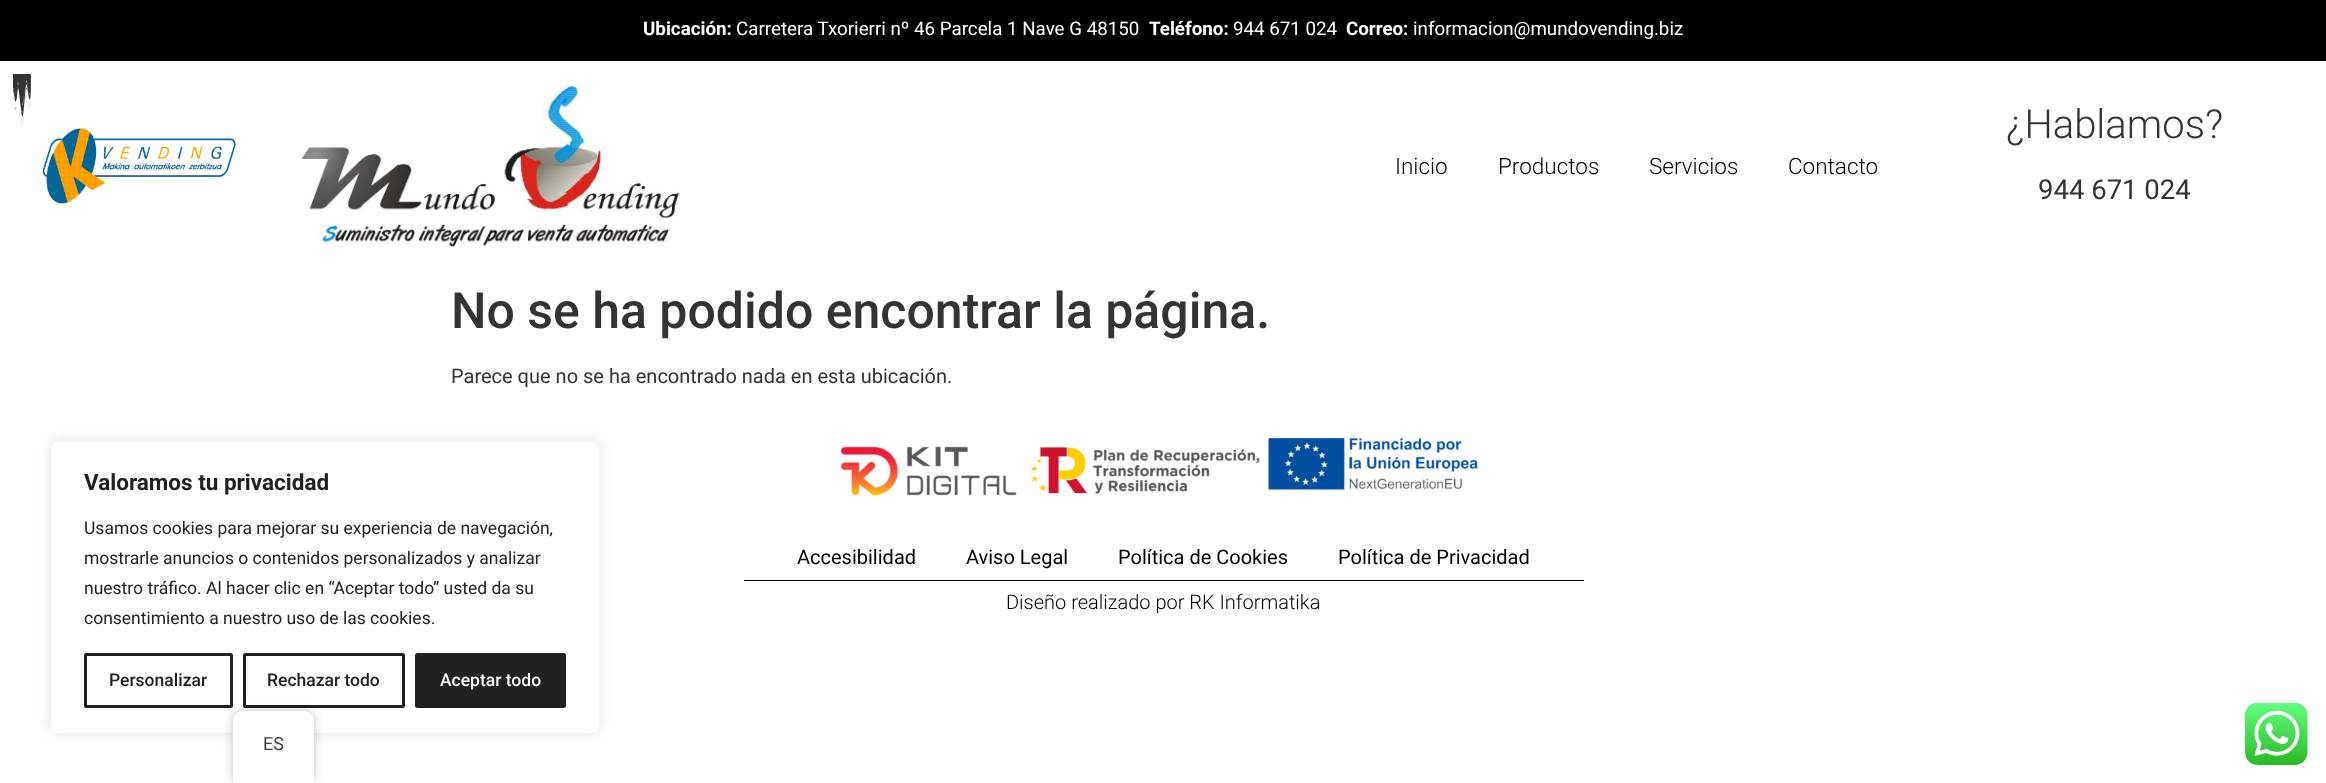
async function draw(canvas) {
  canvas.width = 2326
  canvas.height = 783
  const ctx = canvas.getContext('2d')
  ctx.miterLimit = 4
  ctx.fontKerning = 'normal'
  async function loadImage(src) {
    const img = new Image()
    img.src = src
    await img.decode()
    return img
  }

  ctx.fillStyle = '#fff'
  ctx.fillRect(0, 0, 2326, 783)
  ctx.fillStyle = '#acabab4d'
  ctx.filter = 'blur(6px)'
  ctx.beginPath()
  ctx.roundRect(50, 440, 550, 293, 8)
  ctx.fill()
  ctx.filter = 'none'
  ctx.fillStyle = '#fff'
  ctx.beginPath()
  ctx.roundRect(50.5, 441.5, 549, 292, 7.5)
  ctx.fill()
  ctx.strokeStyle = '#f4f4f4'
  ctx.stroke()
  ctx.font = 'bold 22.5px Roboto'
  ctx.fillStyle = '#212121'
  ctx.fillText('Valoramos tu privacidad', 84, 490)
  ctx.font = '17.5px Roboto'
  ctx.fillText('Usamos cookies para mejorar su experiencia de navegación,', 84, 534)
  ctx.fillText('mostrarle anuncios o contenidos personalizados y analizar', 84, 564)
  ctx.fillText('nuestro tráfico. Al hacer clic en “Aceptar todo” usted da su', 84, 594)
  ctx.fillText('consentimiento a nuestro uso de las cookies.', 84, 624)
  ctx.beginPath()
  ctx.roundRect(85.5, 654.5, 146, 52, 1)
  ctx.strokeStyle = '#212121'
  ctx.lineWidth = 3
  ctx.stroke()
  ctx.font = '500 17.5px Roboto'
  ctx.fillText('Personalizar', 109, 686)
  ctx.beginPath()
  ctx.roundRect(244.5, 654.5, 159, 52, 1)
  ctx.stroke()
  ctx.fillText('Rechazar todo', 267, 686)
  ctx.beginPath()
  ctx.roundRect(416.5, 654.5, 148, 52, 1)
  ctx.fill()
  ctx.stroke()
  ctx.fillStyle = '#fff'
  ctx.fillText('Aceptar todo', 440, 686)
  ctx.fillStyle = '#000'
  ctx.fillRect(0, 0, 2326, 61)
  ctx.font = 'bold 18.75px Roboto'
  ctx.fillStyle = '#fff'
  ctx.fillText('Ubicación:', 643, 35)
  ctx.font = '18.75px Roboto'
  ctx.fillText('Carretera Txorierri nº 46 Parcela 1 Nave G 48150', 736, 35)
  ctx.font = 'bold 18.75px Roboto'
  ctx.fillText('Teléfono:', 1149, 35)
  ctx.font = '18.75px Roboto'
  ctx.fillText('944 671 024', 1233, 35)
  ctx.font = 'bold 18.75px Roboto'
  ctx.fillText('Correo:', 1346, 35)
  ctx.font = '18.75px Roboto'
  ctx.fillText('informacion@mundovending.biz', 1413, 35)
  ctx.drawImage(await loadImage('image0.png'), 13, 74, 18, 49)
  ctx.drawImage(await loadImage('image1.png'), 42, 128, 194, 76)
  ctx.drawImage(await loadImage('image2.png'), 301, 86, 378, 161)
  ctx.font = '300 22.5px Roboto'
  ctx.fillStyle = '#000'
  ctx.fillText('Inicio', 1395, 174)
  ctx.fillText('Productos', 1498, 174)
  ctx.fillText('Servicios', 1649, 174)
  ctx.fillText('Contacto', 1788, 174)
  ctx.font = '300 40px Roboto'
  ctx.fillStyle = '#333'
  ctx.fillText('¿Hablamos?', 2006, 138)
  ctx.font = '27.5px Roboto'
  ctx.fillText('944 671 024', 2038, 199)
  ctx.font = '500 50px Roboto'
  ctx.fillText('No se ha podido encontrar la página.', 451, 328)
  ctx.font = '20px Roboto'
  ctx.fillText('Parece que no se ha encontrado nada en esta ubicación.', 451, 383)
  ctx.drawImage(await loadImage('image3.png'), 840, 437, 638, 59)
  ctx.fillStyle = '#000'
  ctx.fillText('Accesibilidad', 797, 564)
  ctx.fillText('Aviso Legal', 966, 564)
  ctx.fillText('Política de Cookies', 1118, 564)
  ctx.fillText('Política de Privacidad', 1338, 564)
  ctx.fillRect(744, 580, 840, 1)
  ctx.font = '300 20px Roboto'
  ctx.fillText('Diseño realizado por RK Informatika', 1006, 609)
  ctx.fillStyle = '#00000040'
  ctx.filter = 'blur(5px)'
  ctx.beginPath()
  ctx.roundRect(233, 711, 81, 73, 10)
  ctx.fill()
  ctx.filter = 'none'
  ctx.fillStyle = '#fff'
  ctx.beginPath()
  ctx.moveTo(243, 711)
  ctx.lineTo(304, 711)
  ctx.bezierCurveTo(309.5, 711, 314, 715.5, 314, 721)
  ctx.lineTo(314, 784)
  ctx.lineTo(233, 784)
  ctx.lineTo(233, 721)
  ctx.bezierCurveTo(233, 715.5, 237.5, 711, 243, 711)
  ctx.closePath()
  ctx.fill()
  ctx.font = '18px Roboto'
  ctx.fillStyle = '#404040'
  ctx.fillText('ES', 263, 750)
  ctx.drawImage(await loadImage('image4.png'), 2245, 703, 63, 62)
}

draw(document.querySelector('canvas'))
